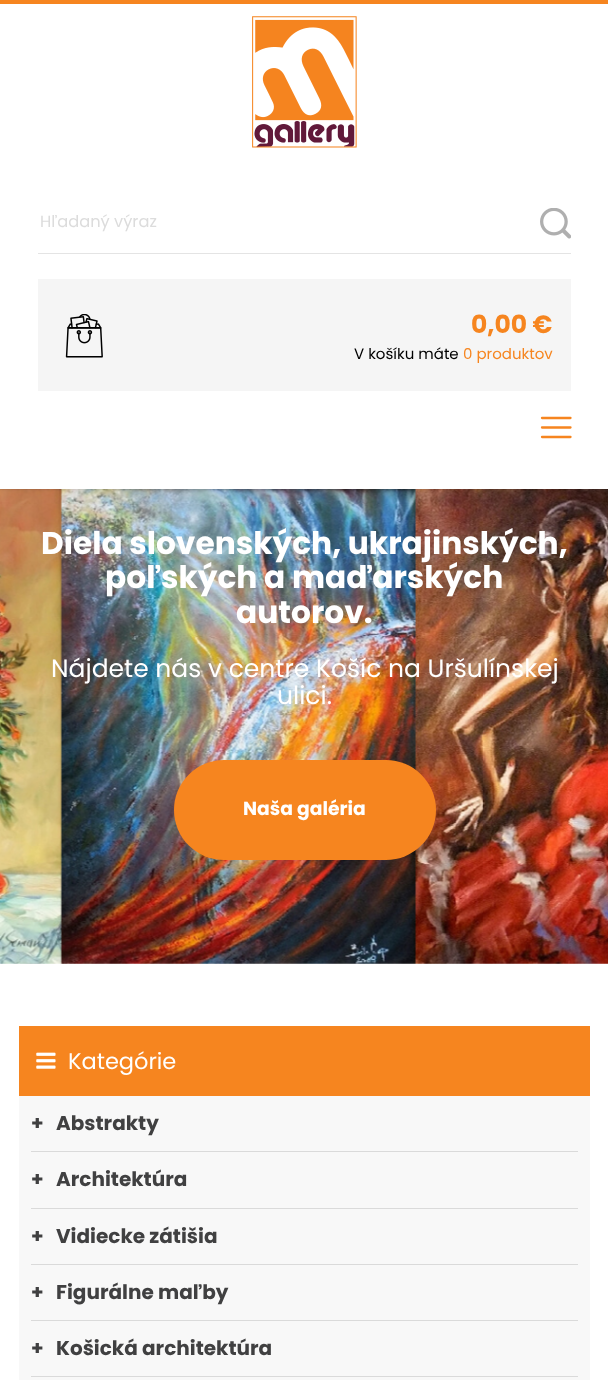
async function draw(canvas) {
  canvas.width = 608
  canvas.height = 1380
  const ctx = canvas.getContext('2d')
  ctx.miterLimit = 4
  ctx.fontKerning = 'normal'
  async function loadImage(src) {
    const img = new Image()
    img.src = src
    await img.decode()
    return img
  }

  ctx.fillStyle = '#fff'
  ctx.fillRect(0, 0, 608, 1380)
  ctx.fillStyle = '#f6851f'
  ctx.fillRect(0, 0, 608, 4)
  ctx.drawImage(await loadImage('image0.png'), 252, 16, 105, 132)
  ctx.fillStyle = '#e4e4e4'
  ctx.fillRect(38, 253, 533, 1)
  ctx.font = '16.25px Poppins'
  ctx.fillStyle = '#dcdcdc'
  ctx.fillText('Hľadaný výraz', 40, 227)
  ctx.drawImage(await loadImage('image1.png'), 540, 208, 31, 31)
  ctx.fillStyle = '#f5f5f5'
  ctx.fillRect(38, 279, 533, 112)
  ctx.drawImage(await loadImage('image2.png'), 65, 314, 38, 44)
  ctx.font = 'bold 25px Poppins'
  ctx.fillStyle = '#f6851f'
  ctx.fillText('0,00 €', 471, 333)
  ctx.font = '15px Poppins'
  ctx.fillStyle = '#000'
  ctx.fillText('V košíku máte', 354, 359)
  ctx.fillStyle = '#f6851f'
  ctx.fillText('0 produktov', 463, 359)
  ctx.beginPath()
  ctx.moveTo(542, 418)
  ctx.lineTo(570.5, 418)
  ctx.moveTo(542, 427.5)
  ctx.lineTo(570.5, 427.5)
  ctx.moveTo(542, 437)
  ctx.lineTo(570.5, 437)
  ctx.strokeStyle = '#f6851f'
  ctx.lineWidth = 2.3
  ctx.lineCap = 'round'
  ctx.stroke()
  ctx.drawImage(await loadImage('image3.png'), 0, 489, 608, 475)
  ctx.font = 'bold 31.25px Poppins'
  ctx.fillStyle = '#fff'
  ctx.fillText('Diela slovenských, ukrajinských,', 41, 554)
  ctx.fillText('poľských a maďarských', 105, 588)
  ctx.fillText('autorov.', 236, 623)
  ctx.font = '25px Poppins'
  ctx.fillText('Nájdete nás v centre Košíc na Uršulínskej', 51, 677)
  ctx.fillText('ulici.', 277, 704)
  ctx.fillStyle = '#f6851f'
  ctx.beginPath()
  ctx.roundRect(174, 760, 262, 100, 50)
  ctx.fill()
  ctx.font = 'bold 18.75px Poppins'
  ctx.fillStyle = '#fff'
  ctx.fillText('Naša galéria', 243, 815)
  ctx.fillStyle = '#f6851f'
  ctx.fillRect(19, 1026, 571, 70)
  ctx.drawImage(await loadImage('image4.png'), 36, 1052, 20, 17)
  ctx.font = '22.5px Poppins'
  ctx.fillStyle = '#fff'
  ctx.fillText('Kategórie', 68, 1069)
  ctx.fillStyle = '#f8f8f8'
  ctx.fillRect(19, 1096, 571, 284)
  ctx.fillStyle = '#dadada'
  ctx.fillRect(31, 1151, 547, 1)
  ctx.font = 'bold 20px Poppins'
  ctx.fillStyle = '#404041'
  ctx.fillText('+', 31, 1130)
  ctx.fillText('Abstrakty', 56, 1130)
  ctx.fillStyle = '#dadada'
  ctx.fillRect(31, 1208, 547, 1)
  ctx.fillStyle = '#404041'
  ctx.fillText('+', 31, 1186)
  ctx.fillText('Architektúra', 56, 1186)
  ctx.fillStyle = '#dadada'
  ctx.fillRect(31, 1264, 547, 1)
  ctx.fillStyle = '#404041'
  ctx.fillText('+', 31, 1243)
  ctx.fillText('Vidiecke zátišia', 56, 1243)
  ctx.fillStyle = '#dadada'
  ctx.fillRect(31, 1320, 547, 1)
  ctx.fillStyle = '#404041'
  ctx.fillText('+', 31, 1299)
  ctx.fillText('Figurálne maľby', 56, 1299)
  ctx.fillStyle = '#dadada'
  ctx.fillRect(31, 1376, 547, 1)
  ctx.fillStyle = '#404041'
  ctx.fillText('+', 31, 1355)
  ctx.fillText('Košická architektúra', 56, 1355)
}

draw(document.querySelector('canvas'))
